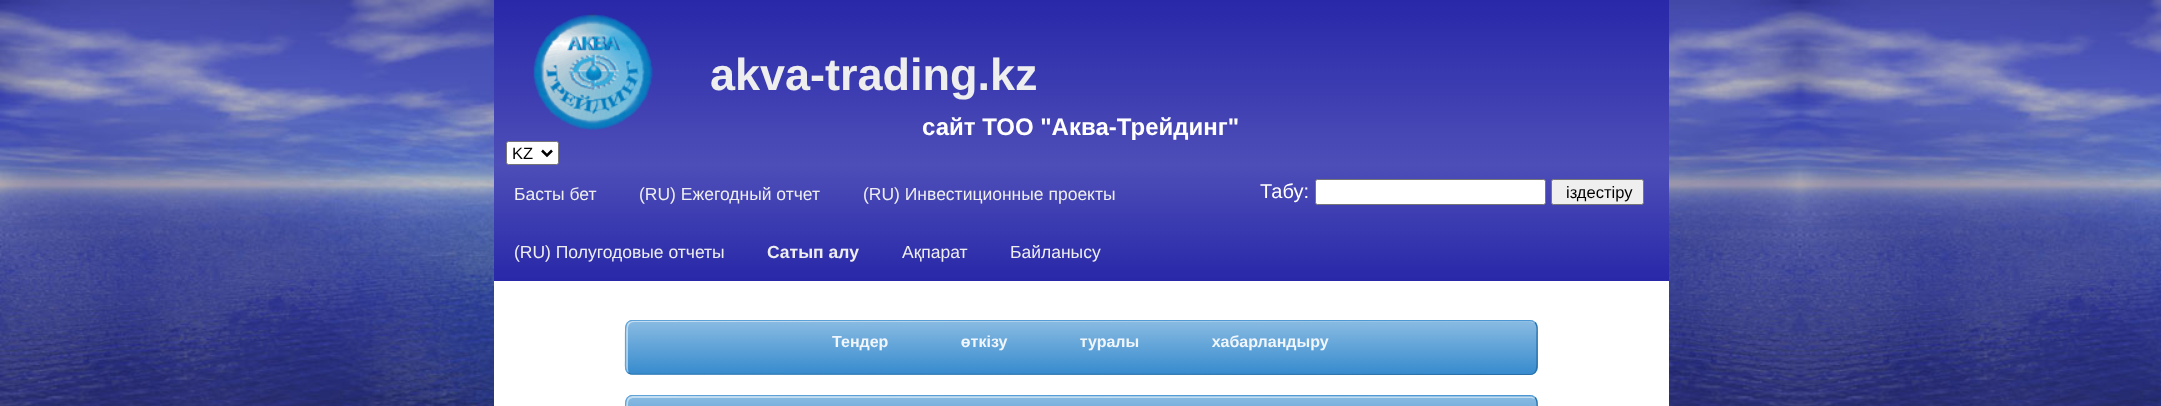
async function draw(canvas) {
  canvas.width = 2161
  canvas.height = 406
  const ctx = canvas.getContext('2d')
  ctx.miterLimit = 4
  ctx.fontKerning = 'normal'
  async function loadImage(src) {
    const img = new Image()
    img.src = src
    await img.decode()
    return img
  }
  let gradient

  ctx.fillStyle = '#fff'
  ctx.fillRect(0, 0, 2161, 406)
  ctx.drawImage(await loadImage('image0.png'), 0, 0, 2161, 406)
  gradient = ctx.createLinearGradient(1081, 0, 1081, 165)
  gradient.addColorStop(0, '#2828a9')
  gradient.addColorStop(1, '#4e4eb8')
  ctx.fillStyle = gradient
  ctx.fillRect(494, 0, 1175, 165)
  ctx.drawImage(await loadImage('image1.png'), 533, 13, 120, 117)
  ctx.font = 'bold 45px Liberation Sans'
  ctx.fillStyle = '#eee'
  ctx.fillText('akva-trading.kz', 710, 90)
  ctx.font = 'bold 24px Liberation Sans'
  ctx.fillStyle = '#fff'
  ctx.fillText('сайт ТОО "Аква-Трейдинг"', 922, 135)
  ctx.beginPath()
  ctx.roundRect(506.5, 141.5, 52, 23, 2)
  ctx.fill()
  ctx.strokeStyle = '#767676'
  ctx.stroke()
  ctx.beginPath()
  ctx.moveTo(542, 150.5)
  ctx.lineTo(547, 155.5)
  ctx.lineTo(552, 150.5)
  ctx.strokeStyle = '#000'
  ctx.lineWidth = 2.5
  ctx.stroke()
  ctx.font = '16.5px Liberation Sans'
  ctx.fillStyle = '#000'
  ctx.fillText('KZ', 512, 159)
  gradient = ctx.createLinearGradient(1081, 165, 1081, 281)
  gradient.addColorStop(0, '#4e4eb8')
  gradient.addColorStop(1, '#2828a9')
  ctx.fillStyle = gradient
  ctx.fillRect(494, 165, 1175, 116)
  ctx.font = '17.5px Liberation Sans'
  ctx.fillStyle = '#eee'
  ctx.fillText('Басты бет', 514, 200)
  ctx.fillText('(RU) Ежегодный отчет', 639, 200)
  ctx.fillText('(RU) Инвестиционные проекты', 863, 200)
  ctx.fillText('(RU) Полугодовые отчеты', 514, 258)
  ctx.font = 'bold 17.5px Liberation Sans'
  ctx.fillText('Сатып алу', 767, 258)
  ctx.font = '17.5px Liberation Sans'
  ctx.fillText('Ақпарат', 902, 258)
  ctx.fillText('Байланысу', 1010, 258)
  ctx.font = '20px Liberation Sans'
  ctx.fillStyle = '#fff'
  ctx.fillText('Табу:', 1260, 198)
  ctx.beginPath()
  ctx.roundRect(1315.5, 179.5, 230, 25, 2)
  ctx.fill()
  ctx.strokeStyle = '#767676'
  ctx.lineWidth = 1
  ctx.stroke()
  ctx.fillStyle = '#efefef'
  ctx.beginPath()
  ctx.roundRect(1551.5, 179.5, 92, 25, 2)
  ctx.fill()
  ctx.stroke()
  ctx.font = '16.5px Liberation Sans'
  ctx.fillStyle = '#000'
  ctx.fillText('іздестіру', 1566, 198)
  ctx.fillStyle = '#fff'
  ctx.fillRect(494, 281, 1175, 125)
  ctx.save()
  ctx.beginPath()
  ctx.roundRect(625, 320, 913, 55, 8)
  ctx.clip()
  gradient = ctx.createLinearGradient(1081, 269, 1081, 321)
  gradient.addColorStop(0, '#89bbe2')
  gradient.addColorStop(0.5, '#60a3d8')
  gradient.addColorStop(1, '#378bce')
  ctx.fillStyle = gradient
  ctx.fillRect(625, 320, 913, 1)
  gradient = ctx.createLinearGradient(1081, 321, 1081, 374)
  gradient.addColorStop(0, '#89bbe2')
  gradient.addColorStop(0.5, '#60a3d8')
  gradient.addColorStop(1, '#378bce')
  ctx.fillStyle = gradient
  ctx.fillRect(625, 321, 913, 53)
  gradient = ctx.createLinearGradient(1081, 374, 1081, 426)
  gradient.addColorStop(0, '#89bbe2')
  gradient.addColorStop(0.5, '#60a3d8')
  gradient.addColorStop(1, '#378bce')
  ctx.fillStyle = gradient
  ctx.fillRect(625, 374, 913, 1)
  ctx.restore()
  ctx.fillStyle = '#ffffff80'
  ctx.beginPath()
  ctx.moveTo(634, 322)
  ctx.lineTo(1531, 322)
  ctx.lineTo(1534, 323)
  ctx.bezierCurveTo(1533, 322, 1532, 321, 1530, 321)
  ctx.lineTo(632, 321)
  ctx.bezierCurveTo(629, 321, 626, 324, 626, 327)
  ctx.lineTo(626, 368)
  ctx.bezierCurveTo(626, 371, 628, 373, 630, 374)
  ctx.bezierCurveTo(629, 373, 628, 371, 628, 369)
  ctx.lineTo(628, 329)
  ctx.bezierCurveTo(628, 325, 630, 322, 634, 322)
  ctx.closePath()
  ctx.fill()
  ctx.beginPath()
  ctx.moveTo(1535, 322.5)
  ctx.bezierCurveTo(1538, 325.5, 1537, 330.5, 1537, 334)
  ctx.lineTo(1537, 361)
  ctx.bezierCurveTo(1537, 366, 1537.5, 374.5, 1530, 374.5)
  ctx.lineTo(630.5, 374)
  ctx.lineTo(627.5, 372.5)
  ctx.strokeStyle = '#2970a9'
  ctx.lineWidth = 1.2
  ctx.stroke()
  ctx.beginPath()
  ctx.moveTo(627.5, 372.5)
  ctx.bezierCurveTo(624.5, 369.5, 625.5, 364.5, 625.5, 361)
  ctx.lineTo(625.5, 334)
  ctx.bezierCurveTo(625.5, 329, 625, 320.5, 632.5, 320.5)
  ctx.lineTo(1532, 321)
  ctx.lineTo(1535, 322.5)
  ctx.strokeStyle = '#60a3d8'
  ctx.stroke()
  ctx.wordSpacing = '68px'
  ctx.font = 'bold 16px Liberation Sans'
  ctx.fillStyle = '#f0f6fb'
  ctx.fillText('Тендер өткізу туралы хабарландыру', 832, 347)
  ctx.save()
  ctx.beginPath()
  ctx.roundRect(625, 395, 913, 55, 8)
  ctx.clip()
  gradient = ctx.createLinearGradient(1081, 344, 1081, 396)
  gradient.addColorStop(0, '#89bbe2')
  gradient.addColorStop(0.5, '#60a3d8')
  gradient.addColorStop(1, '#378bce')
  ctx.fillStyle = gradient
  ctx.fillRect(625, 395, 913, 1)
  gradient = ctx.createLinearGradient(1081, 396, 1081, 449)
  gradient.addColorStop(0, '#89bbe2')
  gradient.addColorStop(0.5, '#60a3d8')
  gradient.addColorStop(1, '#378bce')
  ctx.fillStyle = gradient
  ctx.fillRect(625, 396, 913, 10)
  ctx.restore()
  ctx.fillStyle = '#ffffff80'
  ctx.beginPath()
  ctx.moveTo(634, 398)
  ctx.lineTo(1531, 398)
  ctx.lineTo(1535, 399)
  ctx.bezierCurveTo(1534, 397, 1532, 396, 1530, 396)
  ctx.lineTo(632, 396)
  ctx.bezierCurveTo(629, 396, 626, 399, 626, 402)
  ctx.lineTo(626, 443)
  ctx.bezierCurveTo(626, 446, 628, 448, 630, 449)
  ctx.bezierCurveTo(629, 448, 628, 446, 628, 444)
  ctx.lineTo(628, 404)
  ctx.bezierCurveTo(628, 400, 630, 398, 634, 398)
  ctx.closePath()
  ctx.fill()
  ctx.beginPath()
  ctx.moveTo(1535, 397.5)
  ctx.bezierCurveTo(1538, 400.5, 1537, 405.5, 1537, 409)
  ctx.lineTo(1537, 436)
  ctx.bezierCurveTo(1537, 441, 1537.5, 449.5, 1530, 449.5)
  ctx.lineTo(630.5, 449)
  ctx.lineTo(627.5, 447.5)
  ctx.strokeStyle = '#2970a9'
  ctx.stroke()
  ctx.beginPath()
  ctx.moveTo(627.5, 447.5)
  ctx.bezierCurveTo(624.5, 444.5, 625.5, 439.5, 625.5, 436)
  ctx.lineTo(625.5, 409)
  ctx.bezierCurveTo(625.5, 404, 625, 395.5, 632.5, 395.5)
  ctx.lineTo(1532, 396)
  ctx.lineTo(1535, 397.5)
  ctx.strokeStyle = '#60a3d8'
  ctx.stroke()
}

draw(document.querySelector('canvas'))
